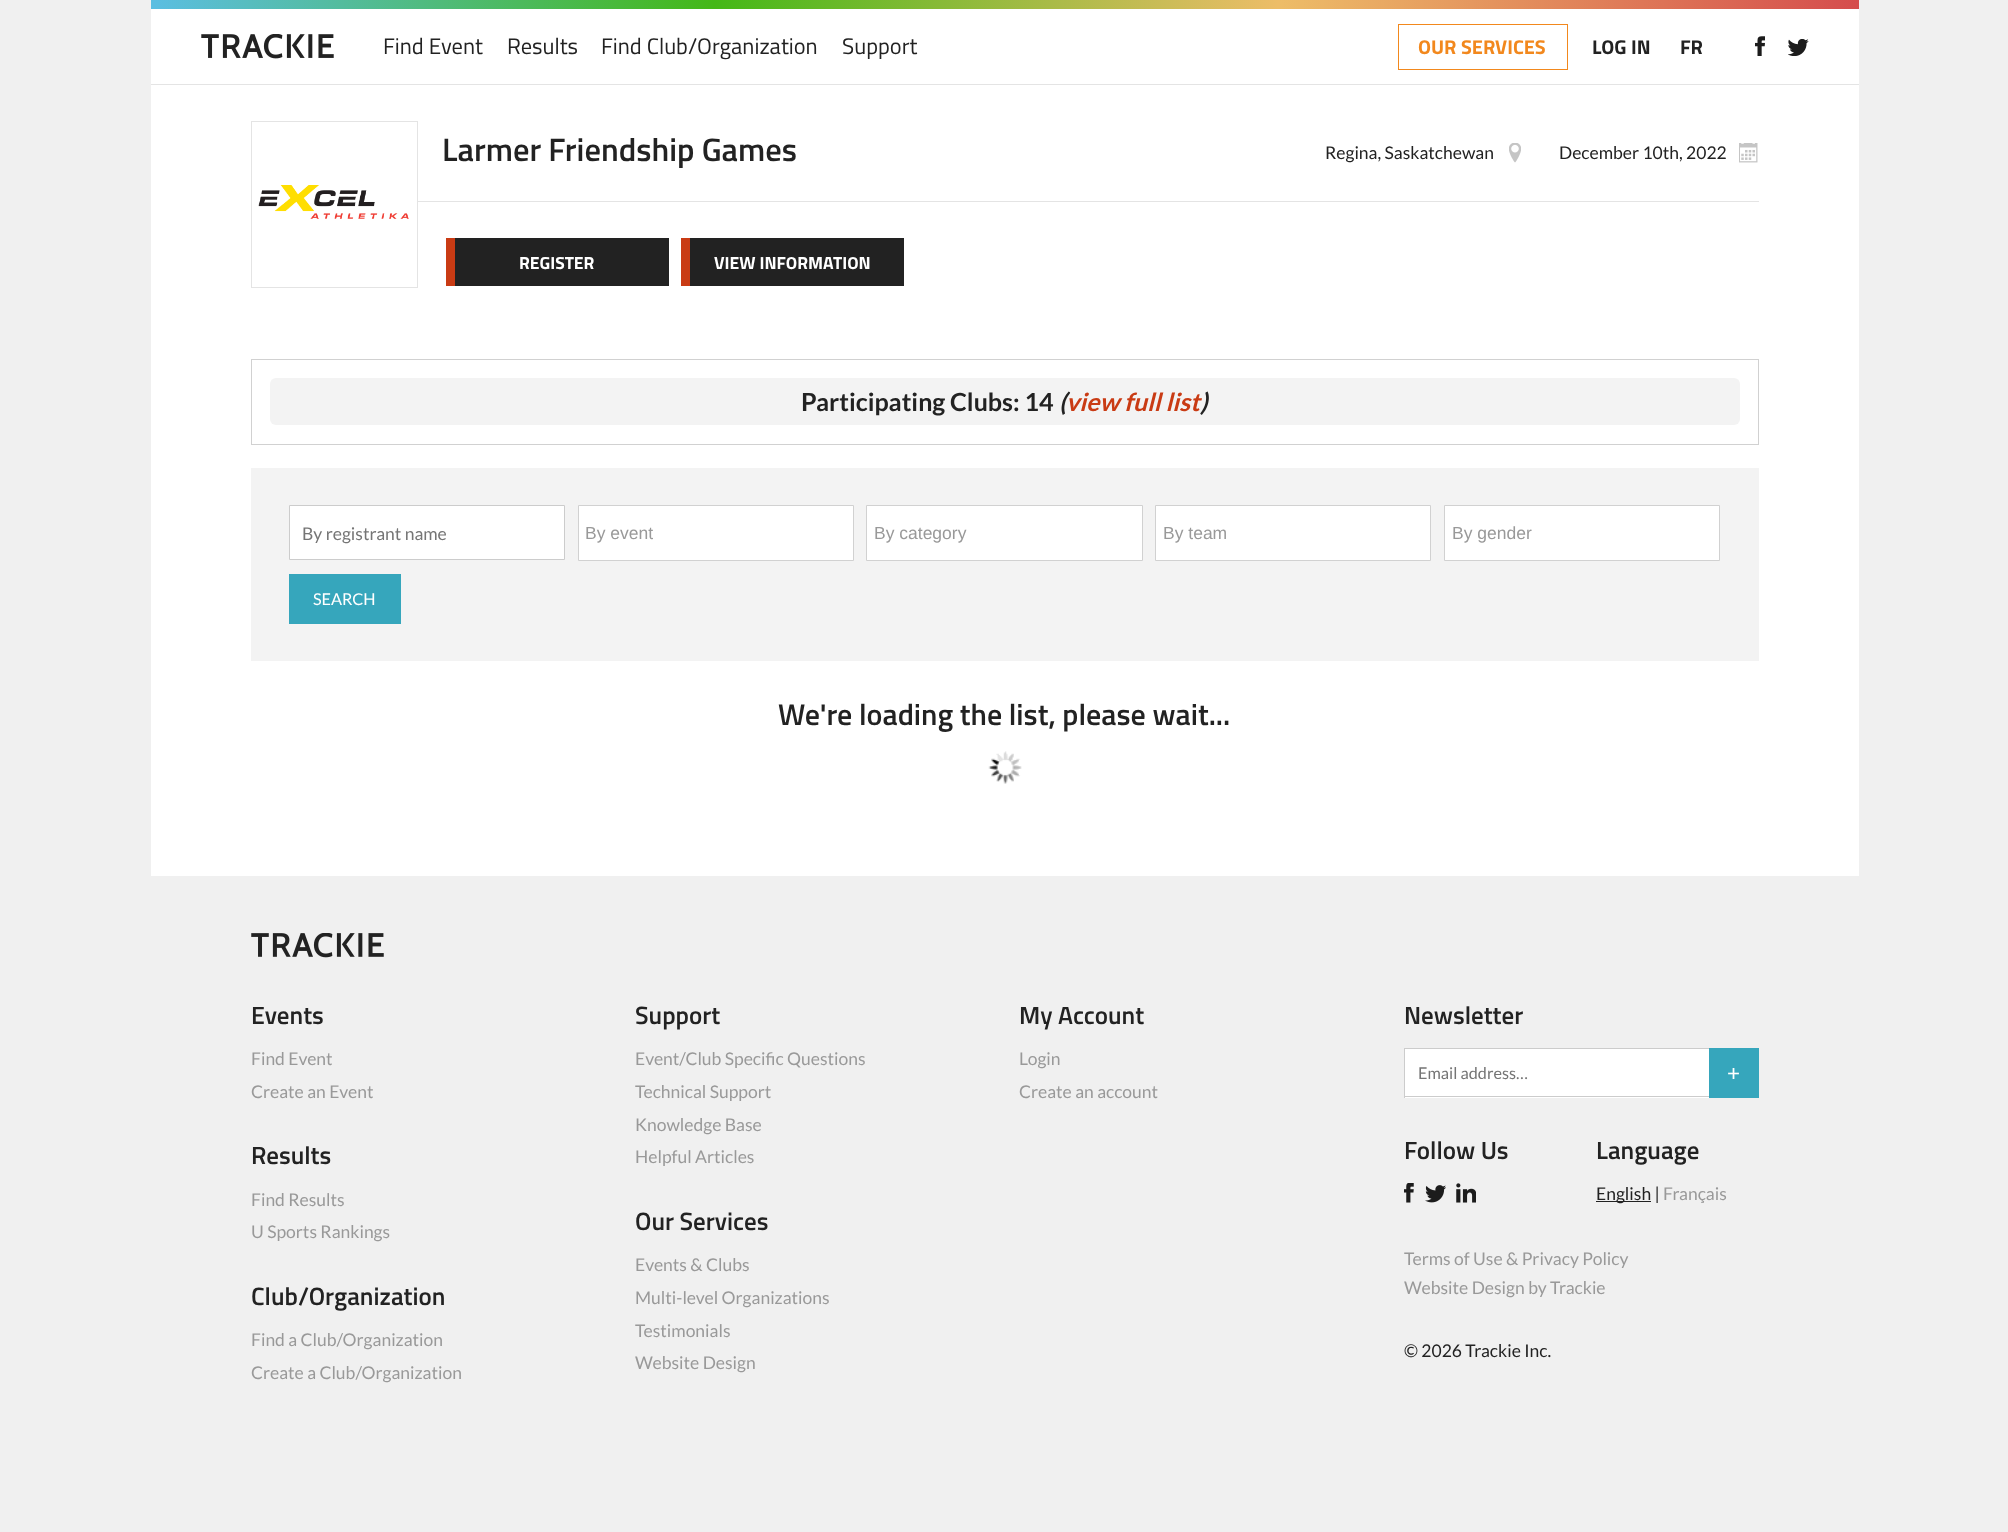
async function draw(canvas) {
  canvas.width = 2008
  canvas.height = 1532
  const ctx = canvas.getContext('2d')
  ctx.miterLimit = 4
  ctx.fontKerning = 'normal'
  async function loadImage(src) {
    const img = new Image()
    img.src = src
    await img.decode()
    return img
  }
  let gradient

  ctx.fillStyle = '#f0f0f0'
  ctx.fillRect(0, 0, 2008, 1532)
  ctx.fillStyle = '#fff'
  ctx.fillRect(151, 9, 1708, 867)
  ctx.fillStyle = '#e4e4e4'
  ctx.fillRect(151, 84, 1708, 1)
  gradient = ctx.createLinearGradient(151, 4.4, 1859, 4.4)
  gradient.addColorStop(0, '#5bbee2')
  gradient.addColorStop(0.33, '#44b817')
  gradient.addColorStop(0.66, '#edbd68')
  gradient.addColorStop(1, '#d54d4d')
  ctx.fillStyle = gradient
  ctx.fillRect(151, 0, 1708, 9)
  ctx.drawImage(await loadImage('image0.png'), 201, 34, 133, 25)
  ctx.font = '22.5px Titillium Web'
  ctx.fillStyle = '#222'
  ctx.fillText('Find Event', 383, 54)
  ctx.fillText('Results', 507, 54)
  ctx.fillText('Find Club/Organization', 601, 54)
  ctx.fillText('Support', 842, 54)
  ctx.strokeStyle = '#f2881d'
  ctx.strokeRect(1398.5, 24.5, 169, 45)
  ctx.font = 'bold 20px Titillium Web'
  ctx.fillStyle = '#f2881d'
  ctx.fillText('OUR SERVICES', 1418, 54)
  ctx.fillStyle = '#222'
  ctx.fillText('LOG IN', 1592, 54)
  ctx.fillText('FR', 1680, 54)
  ctx.drawImage(await loadImage('image1.png'), 1755, 36, 10, 20)
  ctx.drawImage(await loadImage('image2.png'), 1788, 39, 21, 17)
  ctx.strokeStyle = '#e4e4e4'
  ctx.strokeRect(251.5, 121.5, 166, 166)
  ctx.drawImage(await loadImage('image3.png'), 258, 185, 151, 34)
  ctx.fillStyle = '#e4e4e4'
  ctx.fillRect(418, 201, 1341, 1)
  ctx.font = '600 32.5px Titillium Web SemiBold'
  ctx.fillStyle = '#222'
  ctx.fillText('Larmer Friendship Games', 442, 161)
  ctx.drawImage(await loadImage('image4.png'), 1509, 143, 12, 20)
  ctx.font = '17.5px Lato'
  ctx.fillText('Regina, Saskatchewan', 1325, 159)
  ctx.drawImage(await loadImage('image5.png'), 1739, 143, 19, 20)
  ctx.fillText('December 10th, 2022', 1559, 159)
  ctx.fillRect(455, 238, 214, 48)
  ctx.fillStyle = '#c93b14'
  ctx.fillRect(446, 238, 9, 48)
  ctx.font = 'bold 17.5px Titillium Web'
  ctx.fillStyle = '#fff'
  ctx.fillText('REGISTER', 519, 269)
  ctx.fillStyle = '#222'
  ctx.fillRect(690, 238, 214, 48)
  ctx.fillStyle = '#c93b14'
  ctx.fillRect(681, 238, 9, 48)
  ctx.fillStyle = '#fff'
  ctx.fillText('VIEW INFORMATION', 714, 269)
  ctx.strokeStyle = '#d1d1d1'
  ctx.strokeRect(251.5, 359.5, 1507, 85)
  ctx.fillStyle = '#f3f3f3'
  ctx.beginPath()
  ctx.roundRect(270, 378, 1470, 47, 6)
  ctx.fill()
  ctx.font = 'bold 25px Lato'
  ctx.fillStyle = '#222'
  ctx.fillText('Participating Clubs: 14', 801, 411)
  ctx.font = 'italic bold 25px Lato'
  ctx.fillText('(', 1059, 411)
  ctx.fillStyle = '#c93b14'
  ctx.fillText('view full list', 1066, 411)
  ctx.fillStyle = '#222'
  ctx.fillText(')', 1200, 411)
  ctx.fillStyle = '#f3f3f3'
  ctx.fillRect(251, 468, 1508, 193)
  ctx.fillStyle = '#fff'
  ctx.beginPath()
  ctx.rect(289.5, 505.5, 275, 54)
  ctx.fill()
  ctx.strokeStyle = '#ccc'
  ctx.stroke()
  ctx.font = '17.5px Lato'
  ctx.fillStyle = '#757575'
  ctx.fillText('By registrant name', 302, 540)
  ctx.fillStyle = '#fff'
  ctx.beginPath()
  ctx.rect(578.5, 505.5, 275, 55)
  ctx.fill()
  ctx.strokeStyle = '#d1d1d1'
  ctx.stroke()
  ctx.font = '17.5px Liberation Sans'
  ctx.fillStyle = '#999'
  ctx.fillText('By event', 585, 539)
  ctx.fillStyle = '#fff'
  ctx.beginPath()
  ctx.rect(866.5, 505.5, 276, 55)
  ctx.fill()
  ctx.stroke()
  ctx.fillStyle = '#999'
  ctx.fillText('By category', 874, 539)
  ctx.fillStyle = '#fff'
  ctx.beginPath()
  ctx.rect(1155.5, 505.5, 275, 55)
  ctx.fill()
  ctx.stroke()
  ctx.fillStyle = '#999'
  ctx.fillText('By team', 1163, 539)
  ctx.fillStyle = '#fff'
  ctx.beginPath()
  ctx.rect(1444.5, 505.5, 275, 55)
  ctx.fill()
  ctx.stroke()
  ctx.fillStyle = '#999'
  ctx.fillText('By gender', 1452, 539)
  ctx.fillStyle = '#36a6bc'
  ctx.fillRect(289, 574, 112, 50)
  ctx.font = '16.25px Lato'
  ctx.fillStyle = '#fff'
  ctx.fillText('SEARCH', 313, 605)
  ctx.font = '600 30px Titillium Web SemiBold'
  ctx.fillStyle = '#222'
  ctx.fillText('We\'re loading the list, please wait...', 778, 725)
  ctx.drawImage(await loadImage('image6.png'), 988, 751, 34, 33)
  ctx.drawImage(await loadImage('image7.png'), 251, 933, 133, 25)
  ctx.font = '600 25px Titillium Web SemiBold'
  ctx.fillText('Events', 251, 1024)
  ctx.font = '17.5px Lato'
  ctx.fillStyle = '#999'
  ctx.fillText('Find Event', 251, 1065)
  ctx.fillText('Create an Event', 251, 1098)
  ctx.font = '600 25px Titillium Web SemiBold'
  ctx.fillStyle = '#222'
  ctx.fillText('Results', 251, 1164)
  ctx.font = '17.5px Lato'
  ctx.fillStyle = '#999'
  ctx.fillText('Find Results', 251, 1206)
  ctx.fillText('U Sports Rankings', 251, 1238)
  ctx.font = '600 25px Titillium Web SemiBold'
  ctx.fillStyle = '#222'
  ctx.fillText('Club/Organization', 251, 1305)
  ctx.font = '17.5px Lato'
  ctx.fillStyle = '#999'
  ctx.fillText('Find a Club/Organization', 251, 1346)
  ctx.fillText('Create a Club/Organization', 251, 1379)
  ctx.font = '600 25px Titillium Web SemiBold'
  ctx.fillStyle = '#222'
  ctx.fillText('Support', 635, 1024)
  ctx.font = '17.5px Lato'
  ctx.fillStyle = '#999'
  ctx.fillText('Event/Club Specific Questions', 635, 1065)
  ctx.fillText('Technical Support', 635, 1098)
  ctx.fillText('Knowledge Base', 635, 1131)
  ctx.fillText('Helpful Articles', 635, 1163)
  ctx.font = '600 25px Titillium Web SemiBold'
  ctx.fillStyle = '#222'
  ctx.fillText('Our Services', 635, 1230)
  ctx.font = '17.5px Lato'
  ctx.fillStyle = '#999'
  ctx.fillText('Events & Clubs', 635, 1271)
  ctx.fillText('Multi-level Organizations', 635, 1304)
  ctx.fillText('Testimonials', 635, 1337)
  ctx.fillText('Website Design', 635, 1369)
  ctx.font = '600 25px Titillium Web SemiBold'
  ctx.fillStyle = '#222'
  ctx.fillText('My Account', 1019, 1024)
  ctx.font = '17.5px Lato'
  ctx.fillStyle = '#999'
  ctx.fillText('Login', 1019, 1065)
  ctx.fillText('Create an account', 1019, 1098)
  ctx.font = '600 25px Titillium Web SemiBold'
  ctx.fillStyle = '#222'
  ctx.fillText('Newsletter', 1404, 1024)
  ctx.fillStyle = '#fff'
  ctx.fillRect(1405, 1049, 304, 49)
  ctx.fillStyle = '#ccc'
  ctx.fillRect(1404, 1048, 305, 1)
  ctx.fillRect(1404, 1096, 305, 1)
  ctx.fillRect(1404, 1048, 1, 50)
  ctx.font = '16.25px Lato'
  ctx.fillStyle = '#757575'
  ctx.fillText('Email address…', 1418, 1079)
  ctx.fillStyle = '#36a6bc'
  ctx.fillRect(1709, 1048, 50, 50)
  ctx.font = '22.5px Lato'
  ctx.fillStyle = '#fff'
  ctx.fillText('+', 1727, 1081)
  ctx.font = '600 25px Titillium Web SemiBold'
  ctx.fillStyle = '#222'
  ctx.fillText('Follow Us', 1404, 1159)
  ctx.drawImage(await loadImage('image8.png'), 1404, 1183, 10, 20)
  ctx.drawImage(await loadImage('image9.png'), 1425, 1185, 21, 18)
  ctx.drawImage(await loadImage('image10.png'), 1456, 1183, 20, 20)
  ctx.fillText('Language', 1596, 1159)
  ctx.fillRect(1596, 1201, 55, 1)
  ctx.font = '17.5px Lato'
  ctx.fillText('English |', 1596, 1200)
  ctx.fillStyle = '#999'
  ctx.fillText('Français', 1663, 1200)
  ctx.fillText('Terms of Use & Privacy Policy', 1404, 1265)
  ctx.fillText('Website Design by Trackie', 1404, 1294)
  ctx.fillStyle = '#222'
  ctx.fillText('© 2026 Trackie Inc.', 1404, 1357)
}

draw(document.querySelector('canvas'))
